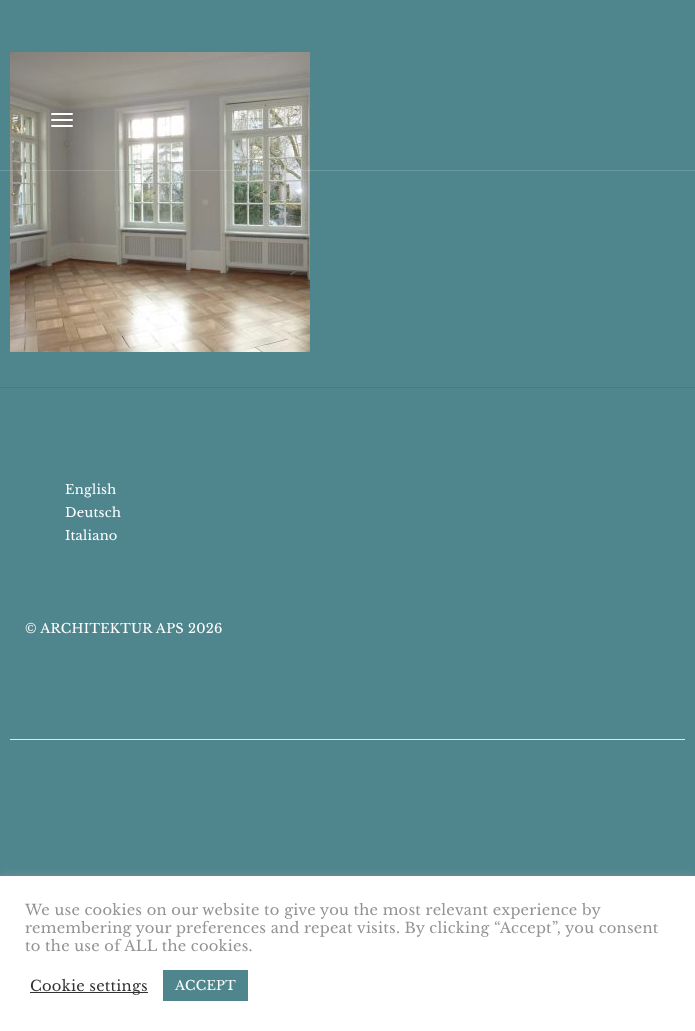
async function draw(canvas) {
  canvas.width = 695
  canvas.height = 1031
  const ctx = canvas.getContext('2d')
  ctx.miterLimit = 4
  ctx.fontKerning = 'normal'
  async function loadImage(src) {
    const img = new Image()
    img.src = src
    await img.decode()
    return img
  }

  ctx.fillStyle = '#4f868e'
  ctx.fillRect(0, 0, 695, 1031)
  ctx.drawImage(await loadImage('image0.png'), 10, 52, 300, 300)
  ctx.fillStyle = '#ffffff26'
  ctx.fillRect(0, 170, 695, 1)
  ctx.fillStyle = '#fff'
  ctx.beginPath()
  ctx.roundRect(51, 113, 22, 2, 1)
  ctx.fill()
  ctx.beginPath()
  ctx.roundRect(51, 119, 22, 2, 1)
  ctx.fill()
  ctx.beginPath()
  ctx.roundRect(51, 125, 22, 2, 1)
  ctx.fill()
  ctx.fillStyle = '#477980'
  ctx.fillRect(0, 387, 695, 1)
  ctx.fillStyle = '#e5e5e5'
  ctx.fillRect(10, 739, 675, 1)
  ctx.letterSpacing = '0.25px'
  ctx.font = '13px Libre Baskerville'
  ctx.fillStyle = '#fff'
  ctx.fillText('English', 65, 494)
  ctx.fillText('Deutsch', 65, 517)
  ctx.fillText('Italiano', 65, 540)
  ctx.fillText('© ARCHITEKTUR APS 2026', 25, 633)
  ctx.fillStyle = '#acabab4d'
  ctx.filter = 'blur(5px)'
  ctx.beginPath()
  ctx.rect(0, 875, 695, 155)
  ctx.fill()
  ctx.filter = 'none'
  ctx.fillStyle = '#fff'
  ctx.fillRect(0, 876, 695, 155)
  ctx.font = '14.65px Libre Baskerville'
  ctx.fillStyle = '#939393'
  ctx.fillText('We use cookies on our website to give you the most relevant experience by', 25, 915)
  ctx.fillText('remembering your preferences and repeat visits. By clicking “Accept”, you consent', 25, 933)
  ctx.fillText('to the use of ALL the cookies.', 25, 951)
  ctx.fillStyle = '#333'
  ctx.fillRect(30, 992, 118, 1)
  ctx.fillText('Cookie settings', 30, 991)
  ctx.fillStyle = '#4f868e'
  ctx.fillRect(163, 970, 85, 31)
  ctx.font = '13px Libre Baskerville'
  ctx.fillStyle = '#fff'
  ctx.fillText('ACCEPT', 175, 990)
}

draw(document.querySelector('canvas'))
